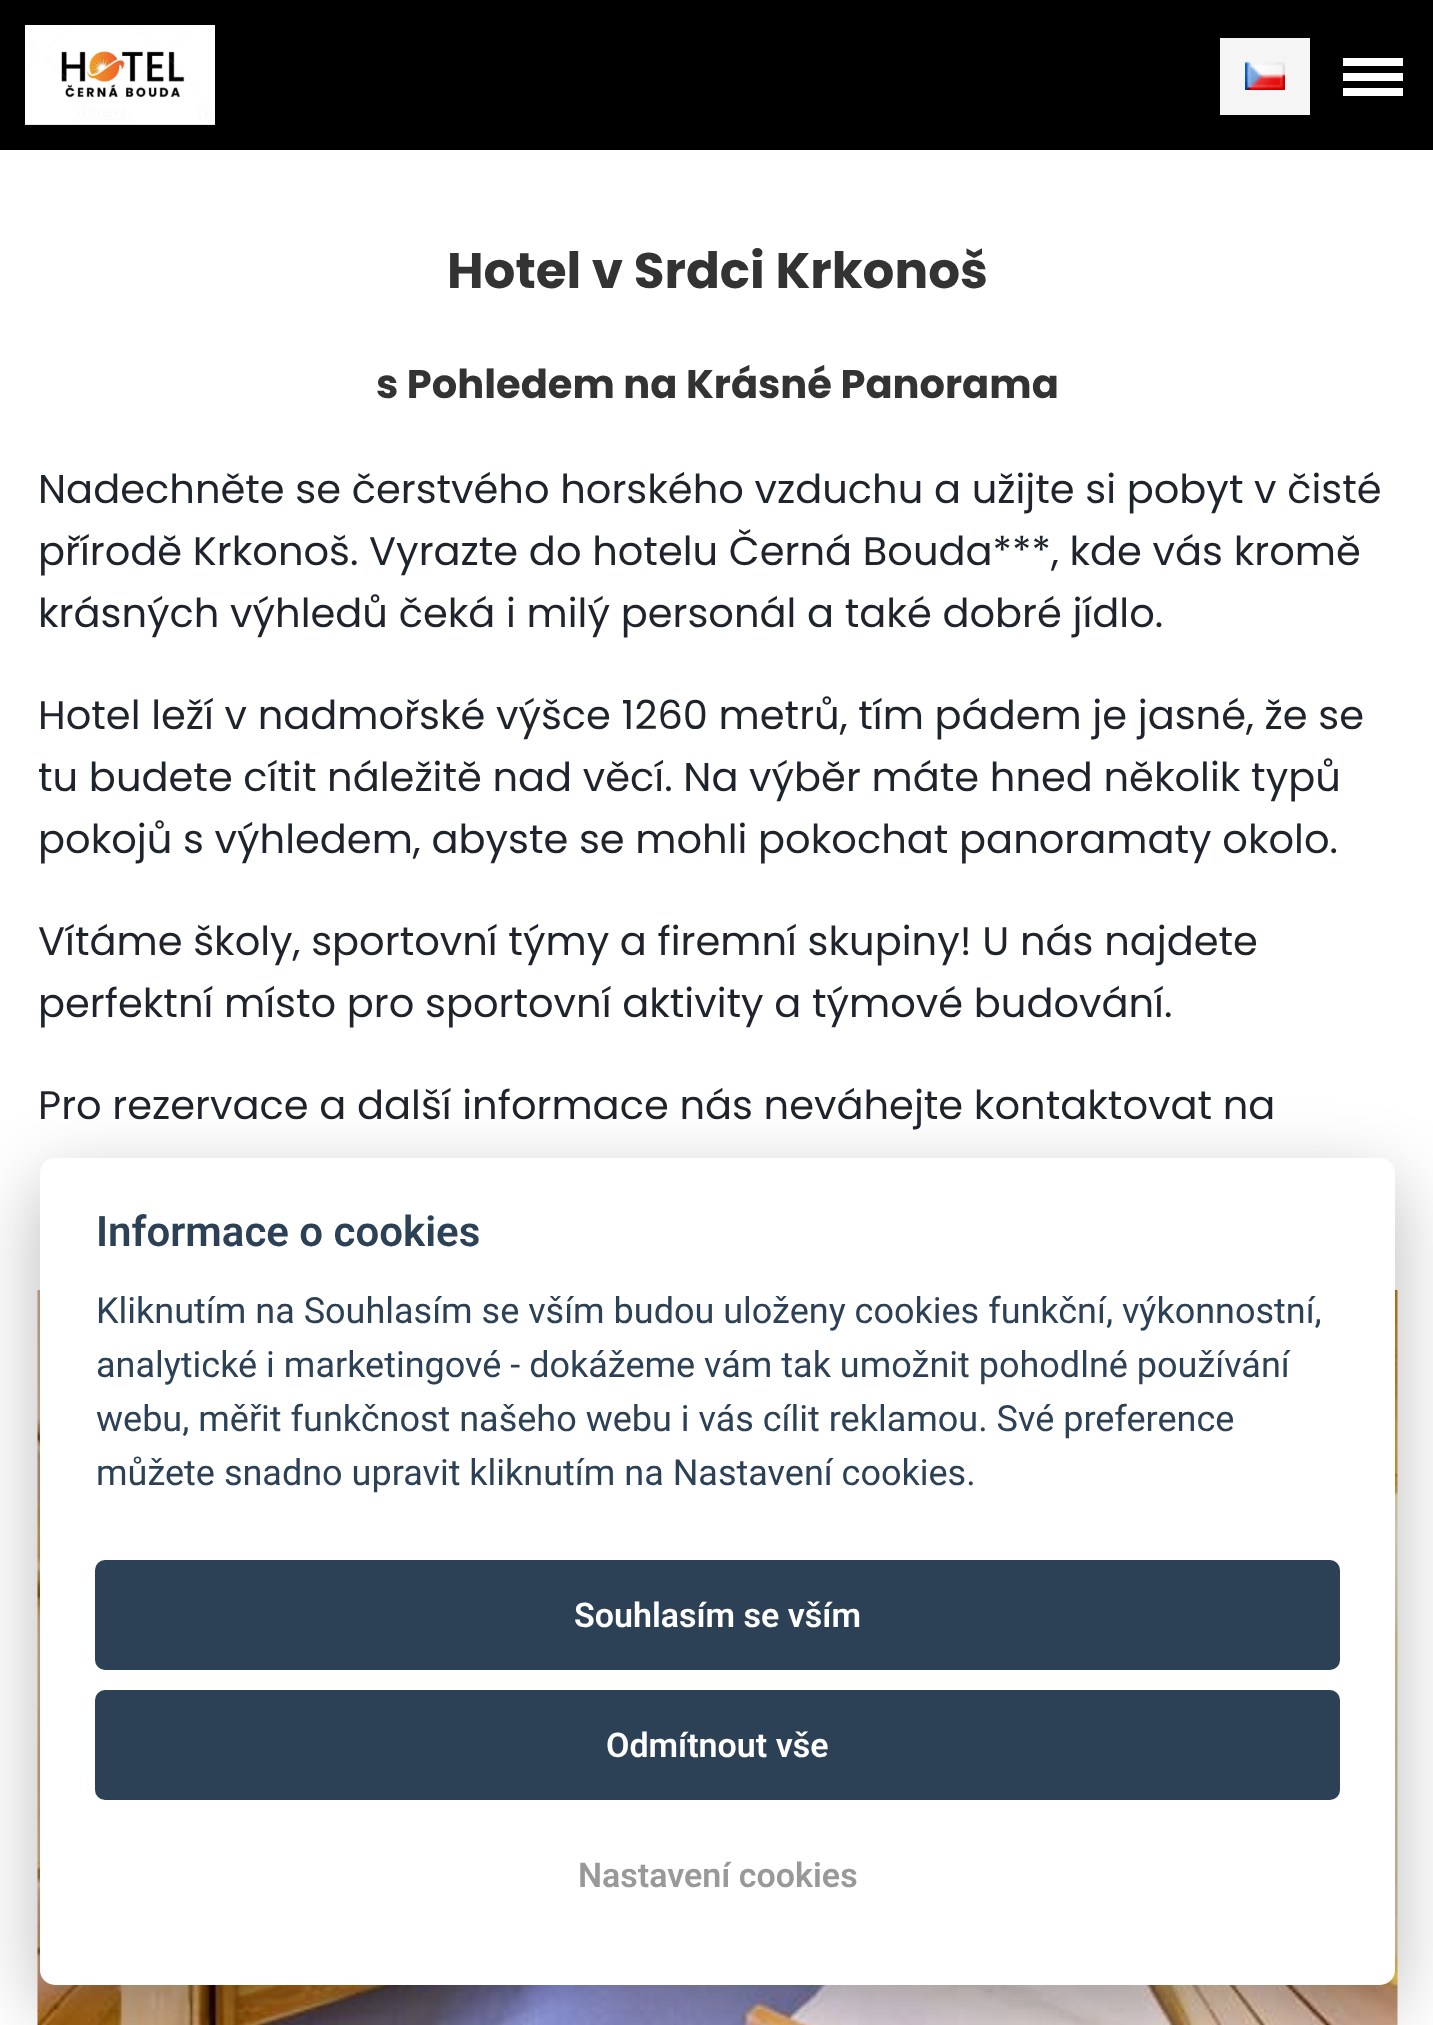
async function draw(canvas) {
  canvas.width = 1433
  canvas.height = 2025
  const ctx = canvas.getContext('2d')
  ctx.miterLimit = 4
  ctx.fontKerning = 'normal'
  async function loadImage(src) {
    const img = new Image()
    img.src = src
    await img.decode()
    return img
  }

  ctx.fillStyle = '#fff'
  ctx.fillRect(0, 0, 1433, 2025)
  ctx.fillStyle = '#000'
  ctx.fillRect(0, 0, 1433, 150)
  ctx.drawImage(await loadImage('image0.png'), 25, 25, 190, 100)
  ctx.fillStyle = '#f5f5f5'
  ctx.fillRect(1220, 38, 90, 77)
  ctx.drawImage(await loadImage('image1.png'), 1245, 61, 40, 29)
  ctx.fillStyle = '#fff'
  ctx.fillRect(1343, 73, 60, 8)
  ctx.fillRect(1343, 58, 60, 8)
  ctx.fillRect(1343, 88, 60, 8)
  ctx.font = 'bold 50px Poppins'
  ctx.fillStyle = '#333'
  ctx.fillText('Hotel v Srdci Krkonoš', 447, 288)
  ctx.font = 'bold 40px Poppins'
  ctx.fillText('s Pohledem na Krásné Panorama', 376, 398)
  ctx.font = '40px Poppins'
  ctx.fillStyle = '#1f232b'
  ctx.fillText('Nadechněte se čerstvého horského vzduchu a užijte si pobyt v čisté', 38, 503)
  ctx.fillText('přírodě Krkonoš. Vyrazte do hotelu Černá Bouda***, kde vás kromě', 38, 565)
  ctx.fillText('krásných výhledů čeká i milý personál a také dobré jídlo.', 38, 627)
  ctx.fillText('Hotel leží v nadmořské výšce 1260 metrů, tím pádem je jasné, že se', 38, 729)
  ctx.fillText('tu budete cítit náležitě nad věcí. Na výběr máte hned několik typů', 38, 791)
  ctx.fillText('pokojů s výhledem, abyste se mohli pokochat panoramaty okolo.', 38, 853)
  ctx.fillText('Vítáme školy, sportovní týmy a firemní skupiny! U nás najdete', 38, 955)
  ctx.fillText('perfektní místo pro sportovní aktivity a týmové budování.', 38, 1017)
  ctx.fillText('Pro rezervace a další informace nás neváhejte kontaktovat na', 38, 1119)
  ctx.drawImage(await loadImage('image2.png'), 37, 1290, 1361, 735)
  ctx.fillStyle = '#02020347'
  ctx.filter = 'blur(37.5px)'
  ctx.beginPath()
  ctx.roundRect(40, 1183, 1355, 827, 15)
  ctx.fill()
  ctx.filter = 'none'
  ctx.fillStyle = '#fff'
  ctx.beginPath()
  ctx.roundRect(40, 1158, 1355, 827, 15)
  ctx.fill()
  ctx.font = '600 42px Roboto'
  ctx.fillStyle = '#2d4156'
  ctx.fillText('Informace o cookies', 96, 1246)
  ctx.font = '36px Roboto'
  ctx.fillText('Kliknutím na Souhlasím se vším budou uloženy cookies funkční, výkonnostní,', 96, 1323)
  ctx.fillText('analytické i marketingové - dokážeme vám tak umožnit pohodlné používání', 96, 1377)
  ctx.fillText('webu, měřit funkčnost našeho webu i vás cílit reklamou. Své preference', 96, 1431)
  ctx.fillText('můžete snadno upravit kliknutím na Nastavení cookies.', 96, 1485)
  ctx.beginPath()
  ctx.roundRect(95, 1560, 1245, 110, 10)
  ctx.fill()
  ctx.font = '600 34px Roboto'
  ctx.fillStyle = '#fff'
  ctx.fillText('Souhlasím se vším', 574, 1627)
  ctx.fillStyle = '#2d4156'
  ctx.beginPath()
  ctx.roundRect(95, 1690, 1245, 110, 10)
  ctx.fill()
  ctx.fillStyle = '#fff'
  ctx.fillText('Odmítnout vše', 606, 1757)
  ctx.fillStyle = '#999'
  ctx.fillText('Nastavení cookies', 578, 1887)
}

draw(document.querySelector('canvas'))
